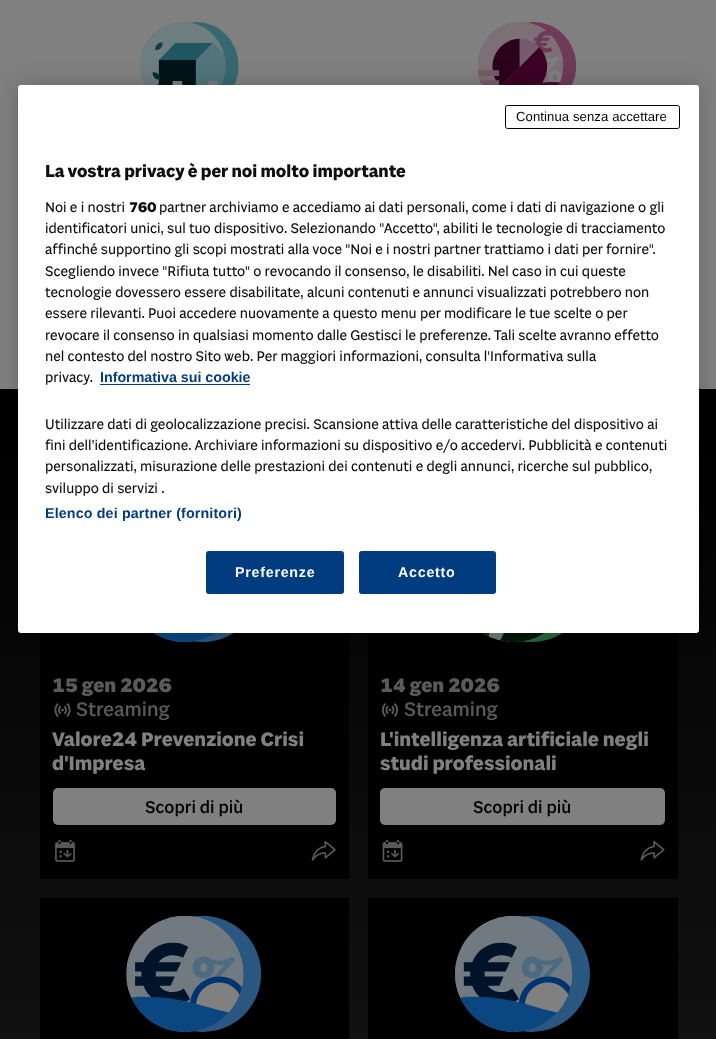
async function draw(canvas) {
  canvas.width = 716
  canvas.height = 1039
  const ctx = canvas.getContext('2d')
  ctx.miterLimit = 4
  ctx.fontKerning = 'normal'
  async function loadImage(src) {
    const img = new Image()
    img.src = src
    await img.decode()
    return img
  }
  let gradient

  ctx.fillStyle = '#808080'
  ctx.fillRect(0, 0, 716, 1039)
  ctx.drawImage(await loadImage('image0.png'), 140, 22, 99, 63)
  ctx.drawImage(await loadImage('image1.png'), 478, 22, 98, 63)
  gradient = ctx.createLinearGradient(358, 389, 358, 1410)
  gradient.addColorStop(0, '#000')
  gradient.addColorStop(1, '#1a1a1a')
  ctx.fillStyle = gradient
  ctx.fillRect(0, 389, 716, 650)
  ctx.fillStyle = '#000'
  ctx.fillRect(40, 633, 309, 246)
  ctx.drawImage(await loadImage('image2.png'), 154, 633, 80, 9)
  ctx.fillRect(368, 633, 310, 246)
  ctx.drawImage(await loadImage('image6.png'), 482, 633, 81, 9)
  ctx.fillStyle = '#00000033'
  ctx.filter = 'blur(11px)'
  ctx.beginPath()
  ctx.roundRect(18, 85, 681, 548, 3)
  ctx.fill()
  ctx.filter = 'none'
  ctx.fillStyle = '#fff'
  ctx.beginPath()
  ctx.roundRect(18, 85, 681, 548, 3)
  ctx.fill()
  ctx.beginPath()
  ctx.roundRect(505.5, 105.5, 174, 23, 2)
  ctx.strokeStyle = '#000'
  ctx.stroke()
  ctx.letterSpacing = '0.1px'
  ctx.font = '13.1px Liberation Sans'
  ctx.fillStyle = '#000'
  ctx.fillText('Continua senza accettare', 516, 121)
  ctx.letterSpacing = '0px'
  ctx.font = 'bold 17.5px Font'
  ctx.fillStyle = '#0f0f0f'
  ctx.fillText('La vostra privacy è per noi molto importante', 45, 177)
  ctx.font = '14.25px Font'
  ctx.fillText('Noi e i nostri', 45, 212)
  ctx.font = 'bold 14.25px Font'
  ctx.fillText('760', 129, 212)
  ctx.font = '14.25px Font'
  ctx.fillText('partner archiviamo e accediamo ai dati personali, come i dati di navigazione o gli', 159, 212)
  ctx.fillText('identificatori unici, sul tuo dispositivo. Selezionando "Accetto", abiliti le tecnologie di tracciamento', 45, 233)
  ctx.fillText('affinché supportino gli scopi mostrati alla voce "Noi e i nostri partner trattiamo i dati per fornire".', 45, 254)
  ctx.fillText('Scegliendo invece "Rifiuta tutto" o revocando il consenso, le disabiliti. Nel caso in cui queste', 45, 276)
  ctx.fillText('tecnologie dovessero essere disabilitate, alcuni contenuti e annunci visualizzati potrebbero non', 45, 297)
  ctx.fillText('essere rilevanti. Puoi accedere nuovamente a questo menu per modificare le tue scelte o per', 45, 318)
  ctx.fillText('revocare il consenso in qualsiasi momento dalle Gestisci le preferenze. Tali scelte avranno effetto', 45, 340)
  ctx.fillText('nel contesto del nostro Sito web. Per maggiori informazioni, consulta l\'Informativa sulla', 45, 361)
  ctx.fillText('privacy.', 45, 382)
  ctx.font = 'bold 14.25px Liberation Sans'
  ctx.fillStyle = '#003c7f'
  ctx.fillText('Informativa sui cookie', 100, 382)
  ctx.fillRect(100, 384, 150, 1)
  ctx.font = '14.25px Font'
  ctx.fillStyle = '#0f0f0f'
  ctx.fillText('Utilizzare dati di geolocalizzazione precisi. Scansione attiva delle caratteristiche del dispositivo ai', 45, 429)
  ctx.fillText('fini dell’identificazione. Archiviare informazioni su dispositivo e/o accedervi. Pubblicità e contenuti', 45, 450)
  ctx.fillText('personalizzati, misurazione delle prestazioni dei contenuti e degli annunci, ricerche sul pubblico,', 45, 471)
  ctx.fillText('sviluppo di servizi .', 45, 493)
  ctx.letterSpacing = '0.15px'
  ctx.font = 'bold 14.25px Liberation Sans'
  ctx.fillStyle = '#003c7f'
  ctx.fillText('Elenco dei partner (fornitori)', 45, 518)
  ctx.beginPath()
  ctx.roundRect(206.5, 551.5, 137, 42, 2)
  ctx.fill()
  ctx.strokeStyle = '#003c7f'
  ctx.stroke()
  ctx.letterSpacing = '0.75px'
  ctx.fillStyle = '#fff'
  ctx.fillText('Preferenze', 235, 577)
  ctx.fillStyle = '#003c7f'
  ctx.beginPath()
  ctx.roundRect(359.5, 551.5, 136, 42, 2)
  ctx.fill()
  ctx.stroke()
  ctx.fillStyle = '#fff'
  ctx.fillText('Accetto', 398, 577)
  ctx.letterSpacing = '0px'
  ctx.font = '800 20px Font'
  ctx.fillStyle = '#5a5a5a'
  ctx.fillText('15 gen 2026', 52, 692)
  ctx.drawImage(await loadImage('image3.png'), 54, 703, 17, 14)
  ctx.font = '500 20px Font'
  ctx.fillText('Streaming', 76, 716)
  ctx.font = 'bold 20px Font'
  ctx.fillStyle = '#808080'
  ctx.fillText('Valore24 Prevenzione Crisi', 52, 746)
  ctx.fillText('d\'Impresa', 52, 770)
  ctx.beginPath()
  ctx.roundRect(53, 788, 283, 37, 5)
  ctx.fill()
  ctx.font = '500 17.5px Font'
  ctx.fillStyle = '#000'
  ctx.fillText('Scopri di più', 145, 813)
  ctx.drawImage(await loadImage('image4.png'), 55, 839, 20, 23)
  ctx.drawImage(await loadImage('image5.png'), 311, 841, 25, 20)
  ctx.font = '800 20px Font'
  ctx.fillStyle = '#5a5a5a'
  ctx.fillText('14 gen 2026', 380, 692)
  ctx.drawImage(await loadImage('image7.png'), 382, 703, 16, 14)
  ctx.font = '500 20px Font'
  ctx.fillText('Streaming', 404, 716)
  ctx.font = 'bold 20px Font'
  ctx.fillStyle = '#808080'
  ctx.fillText('L\'intelligenza artificiale negli', 380, 746)
  ctx.fillText('studi professionali', 380, 770)
  ctx.beginPath()
  ctx.roundRect(380, 788, 285, 37, 5)
  ctx.fill()
  ctx.font = '500 17.5px Font'
  ctx.fillStyle = '#000'
  ctx.fillText('Scopri di più', 473, 813)
  ctx.drawImage(await loadImage('image8.png'), 382, 839, 21, 23)
  ctx.drawImage(await loadImage('image9.png'), 640, 841, 25, 20)
  ctx.fillRect(40, 898, 309, 141)
  ctx.drawImage(await loadImage('image10.png'), 126, 916, 135, 116)
  ctx.fillRect(368, 898, 310, 141)
  ctx.drawImage(await loadImage('image11.png'), 455, 916, 135, 116)
}

draw(document.querySelector('canvas'))
